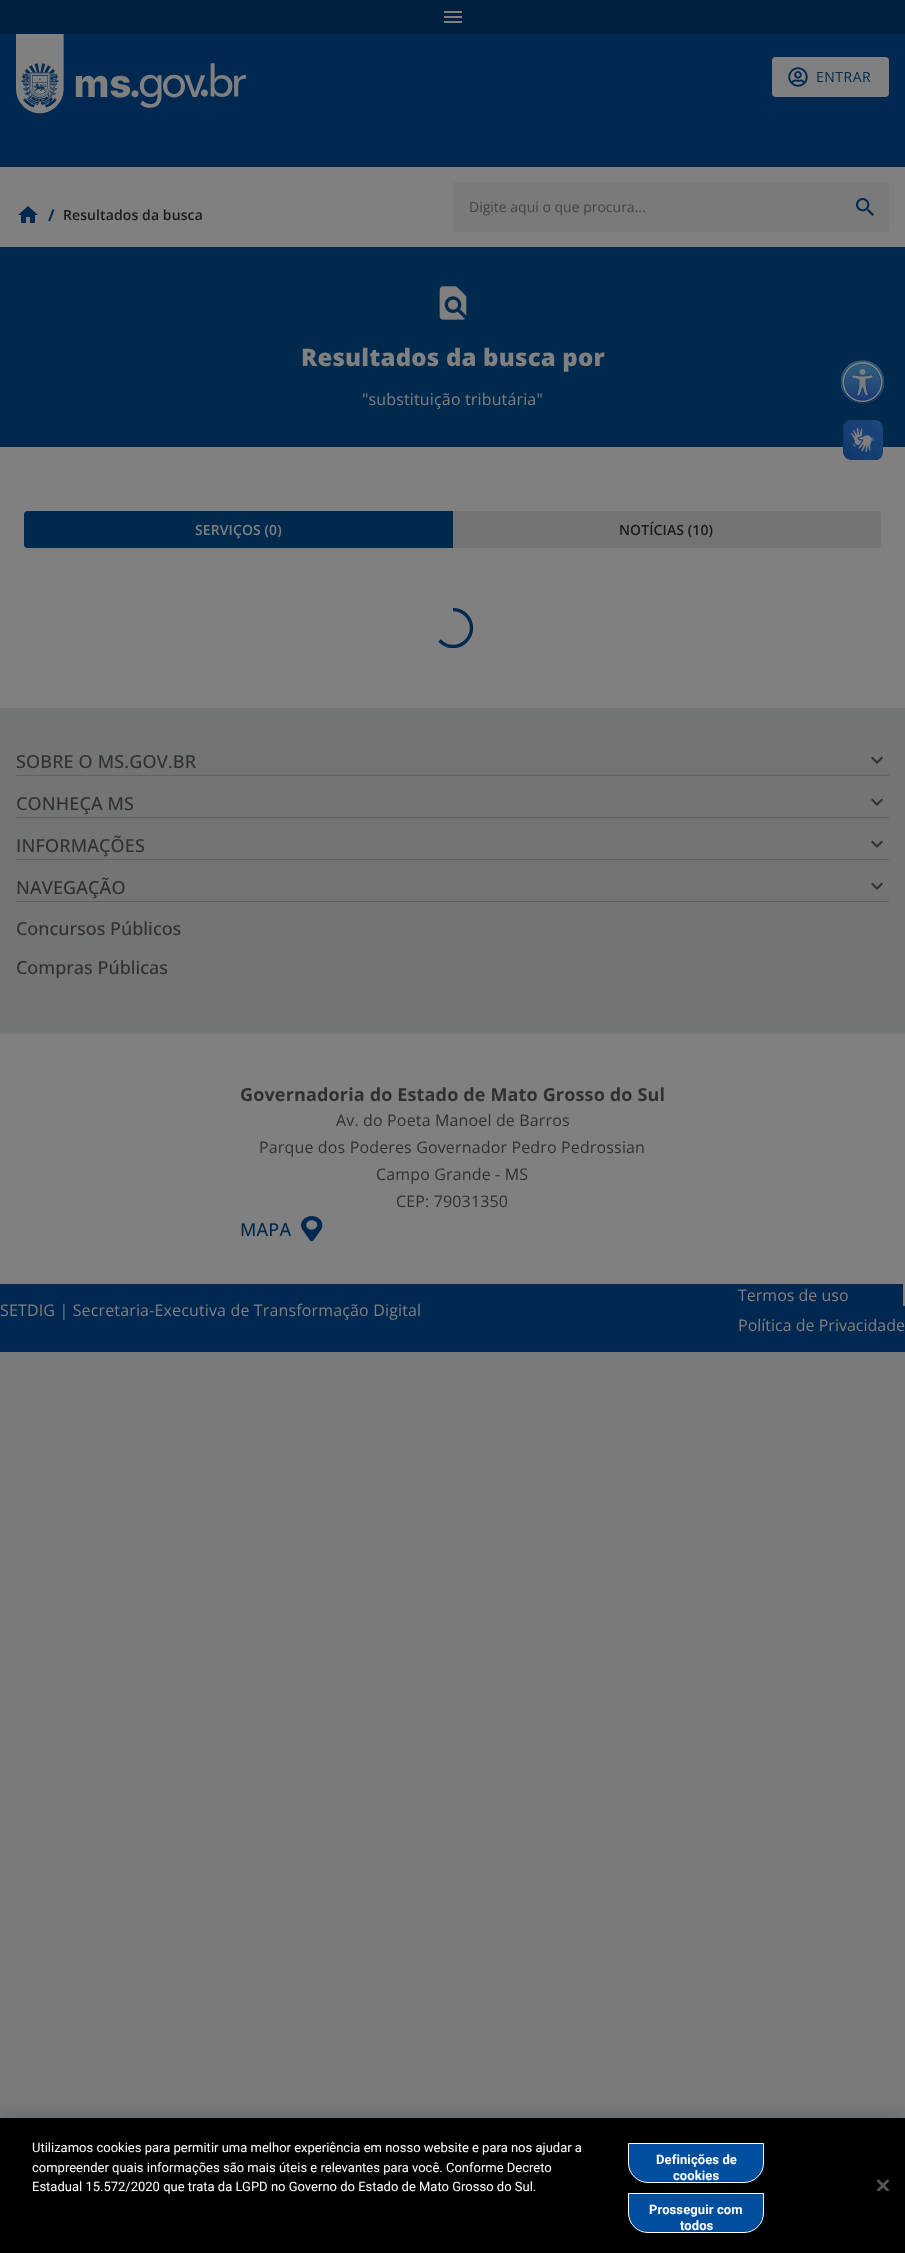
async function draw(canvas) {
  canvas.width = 905
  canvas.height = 2253
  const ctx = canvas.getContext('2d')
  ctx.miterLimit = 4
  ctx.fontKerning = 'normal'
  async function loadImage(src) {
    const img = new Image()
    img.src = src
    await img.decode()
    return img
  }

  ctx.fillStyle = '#787b7d'
  ctx.fillRect(0, 0, 905, 2253)
  ctx.fillStyle = '#00203f'
  ctx.fillRect(0, 0, 905, 34)
  ctx.drawImage(await loadImage('image0.png'), 444, 11, 18, 12)
  ctx.fillStyle = '#002850'
  ctx.fillRect(0, 34, 905, 132)
  ctx.drawImage(await loadImage('image1.png'), 16, 34, 230, 80)
  ctx.fillStyle = '#808080'
  ctx.beginPath()
  ctx.roundRect(772, 57, 117, 40, 4)
  ctx.fill()
  ctx.drawImage(await loadImage('image2.png'), 788, 67, 20, 20)
  ctx.letterSpacing = '0.5px'
  ctx.font = '14px Open Sans'
  ctx.fillStyle = '#00294e'
  ctx.fillText('ENTRAR', 816, 82)
  ctx.fillStyle = '#808080'
  ctx.fillRect(0, 167, 905, 541)
  ctx.fillStyle = '#00294e'
  ctx.fillRect(0, 166, 905, 1)
  ctx.drawImage(await loadImage('image3.png'), 18, 206, 20, 17)
  ctx.letterSpacing = '0.15px'
  ctx.font = 'bold 16px Open Sans'
  ctx.fillText('/', 48, 221)
  ctx.letterSpacing = '0.1px'
  ctx.font = '600 14px Open Sans'
  ctx.fillStyle = '#1a1a1a'
  ctx.fillText('Resultados da busca', 63, 220)
  ctx.fillStyle = '#7a7a7a'
  ctx.beginPath()
  ctx.roundRect(453, 182, 388, 50, [4, 0, 0, 4])
  ctx.fill()
  ctx.letterSpacing = '0px'
  ctx.font = '14px Open Sans'
  ctx.fillStyle = '#444'
  ctx.fillText('Digite aqui o que procura...', 469, 212)
  ctx.fillStyle = '#7a7a7a'
  ctx.beginPath()
  ctx.roundRect(841, 182, 48, 50, [0, 4, 4, 0])
  ctx.fill()
  ctx.drawImage(await loadImage('image4.png'), 856, 198, 18, 18)
  ctx.fillStyle = '#00294e'
  ctx.fillRect(0, 247, 905, 200)
  ctx.drawImage(await loadImage('image5.png'), 439, 286, 28, 34)
  ctx.letterSpacing = '0.2px'
  ctx.font = '800 24px Open Sans'
  ctx.fillStyle = '#808080'
  ctx.fillText('Resultados da busca por', 301, 366)
  ctx.letterSpacing = '0.15px'
  ctx.font = '16px Open Sans'
  ctx.fillText('"substituição tributária"', 362, 405)
  ctx.fillStyle = '#7a7a7a'
  ctx.beginPath()
  ctx.roundRect(24, 511, 857, 37, 4)
  ctx.fill()
  ctx.fillStyle = '#00294e'
  ctx.beginPath()
  ctx.roundRect(24, 511, 429, 37, [4, 0, 0, 4])
  ctx.fill()
  ctx.letterSpacing = '0.1px'
  ctx.font = '600 14px Open Sans'
  ctx.fillStyle = '#808080'
  ctx.fillText('SERVIÇOS (0)', 195, 535)
  ctx.fillStyle = '#4444441a'
  ctx.beginPath()
  ctx.roundRect(453, 511, 428, 37, [0, 4, 4, 0])
  ctx.fill()
  ctx.fillStyle = '#1a1a1a'
  ctx.fillText('NOTÍCIAS (10)', 619, 535)
  ctx.save()
  ctx.beginPath()
  ctx.rect(433, 608, 40, 40)
  ctx.clip()
  ctx.beginPath()
  ctx.moveTo(453, 609.5)
  ctx.bezierCurveTo(463, 609.5, 471.5, 618, 471.5, 628)
  ctx.bezierCurveTo(471.5, 638, 463, 646.5, 453, 646.5)
  ctx.bezierCurveTo(447.5, 646.5, 443, 644, 439.5, 640.5)
  ctx.strokeStyle = '#00294e'
  ctx.lineWidth = 3.3
  ctx.stroke()
  ctx.restore()
  ctx.fillStyle = '#737474'
  ctx.fillRect(0, 708, 905, 326)
  ctx.fillStyle = '#5f6060'
  ctx.fillRect(16, 775, 873, 1)
  ctx.letterSpacing = '0.15px'
  ctx.font = '500 18px Open Sans'
  ctx.fillStyle = '#303031'
  ctx.fillText('SOBRE O MS.GOV.BR', 16, 768)
  ctx.drawImage(await loadImage('image6.png'), 871, 756, 12, 8)
  ctx.fillStyle = '#5f6060'
  ctx.fillRect(16, 817, 873, 1)
  ctx.fillStyle = '#303031'
  ctx.fillText('CONHEÇA MS', 16, 810)
  ctx.drawImage(await loadImage('image6.png'), 871, 798, 12, 8)
  ctx.fillStyle = '#5f6060'
  ctx.fillRect(16, 859, 873, 1)
  ctx.fillStyle = '#303031'
  ctx.fillText('INFORMAÇÕES', 16, 852)
  ctx.drawImage(await loadImage('image6.png'), 871, 840, 12, 8)
  ctx.fillStyle = '#5f6060'
  ctx.fillRect(16, 901, 873, 1)
  ctx.fillStyle = '#303031'
  ctx.fillText('NAVEGAÇÃO', 16, 894)
  ctx.drawImage(await loadImage('image6.png'), 871, 882, 12, 8)
  ctx.letterSpacing = '0px'
  ctx.fillText('Concursos Públicos', 16, 935)
  ctx.fillText('Compras Públicas', 16, 974)
  ctx.fillStyle = '#808080'
  ctx.fillRect(0, 1034, 905, 250)
  ctx.letterSpacing = '0.15px'
  ctx.font = 'bold 18px Open Sans'
  ctx.fillStyle = '#303031'
  ctx.fillText('Governadoria do Estado de Mato Grosso do Sul', 240, 1101)
  ctx.font = '16px Open Sans'
  ctx.fillText('Av. do Poeta Manoel de Barros', 336, 1126)
  ctx.fillText('Parque dos Poderes Governador Pedro Pedrossian', 259, 1153)
  ctx.fillText('Campo Grande - MS', 376, 1180)
  ctx.fillText('CEP: 79031350', 396, 1207)
  ctx.font = '500 18px Open Sans'
  ctx.fillStyle = '#00294e'
  ctx.fillText('MAPA', 240, 1236)
  ctx.drawImage(await loadImage('image7.png'), 301, 1216, 22, 25)
  ctx.fillStyle = '#002850'
  ctx.fillRect(0, 1284, 905, 68)
  ctx.font = '16px Open Sans'
  ctx.fillStyle = '#808080'
  ctx.fillText('SETDIG | Secretaria-Executiva de Transformação Digital', 0, 1316)
  ctx.fillRect(903, 1284, 2, 22)
  ctx.letterSpacing = '0px'
  ctx.fillText('Termos de uso', 738, 1301)
  ctx.fillText('Política de Privacidade', 738, 1331)
  ctx.drawImage(await loadImage('image8.png'), 840, 360, 45, 45)
  ctx.drawImage(await loadImage('image9.png'), 843, 420, 40, 40)
  ctx.drawImage(await loadImage('image10.png'), 843, 420, 40, 40)
  ctx.fillStyle = '#00000033'
  ctx.filter = 'blur(9px)'
  ctx.beginPath()
  ctx.rect(0, 2118, 905, 135)
  ctx.fill()
  ctx.filter = 'none'
  ctx.fillStyle = '#000'
  ctx.fillRect(0, 2118, 905, 135)
  ctx.font = '13px Roboto'
  ctx.fillStyle = '#fff'
  ctx.fillText('Utilizamos cookies para permitir uma melhor experiência em nosso website e para nos ajudar a', 32, 2152)
  ctx.fillText('compreender quais informações são mais úteis e relevantes para você. Conforme Decreto', 32, 2172)
  ctx.fillText('Estadual 15.572/2020 que trata da LGPD no Governo do Estado de Mato Grosso do Sul.', 32, 2191)
  ctx.fillStyle = '#004f9f'
  ctx.beginPath()
  ctx.roundRect(628.5, 2143.5, 135, 39, [0, 0, 19.5, 19.5])
  ctx.fill()
  ctx.strokeStyle = '#fff'
  ctx.stroke()
  ctx.letterSpacing = '0.1px'
  ctx.font = 'bold 13px Roboto'
  ctx.fillStyle = '#fff'
  ctx.fillText('Definições de', 656, 2164)
  ctx.fillText('cookies', 673, 2180)
  ctx.fillStyle = '#004f9f'
  ctx.beginPath()
  ctx.roundRect(628.5, 2193.5, 135, 39, [0, 0, 19.5, 19.5])
  ctx.fill()
  ctx.stroke()
  ctx.fillStyle = '#fff'
  ctx.fillText('Prosseguir com', 649, 2214)
  ctx.fillText('todos', 680, 2230)
  ctx.drawImage(await loadImage('image11.png'), 877, 2179, 12, 12)
}

draw(document.querySelector('canvas'))
